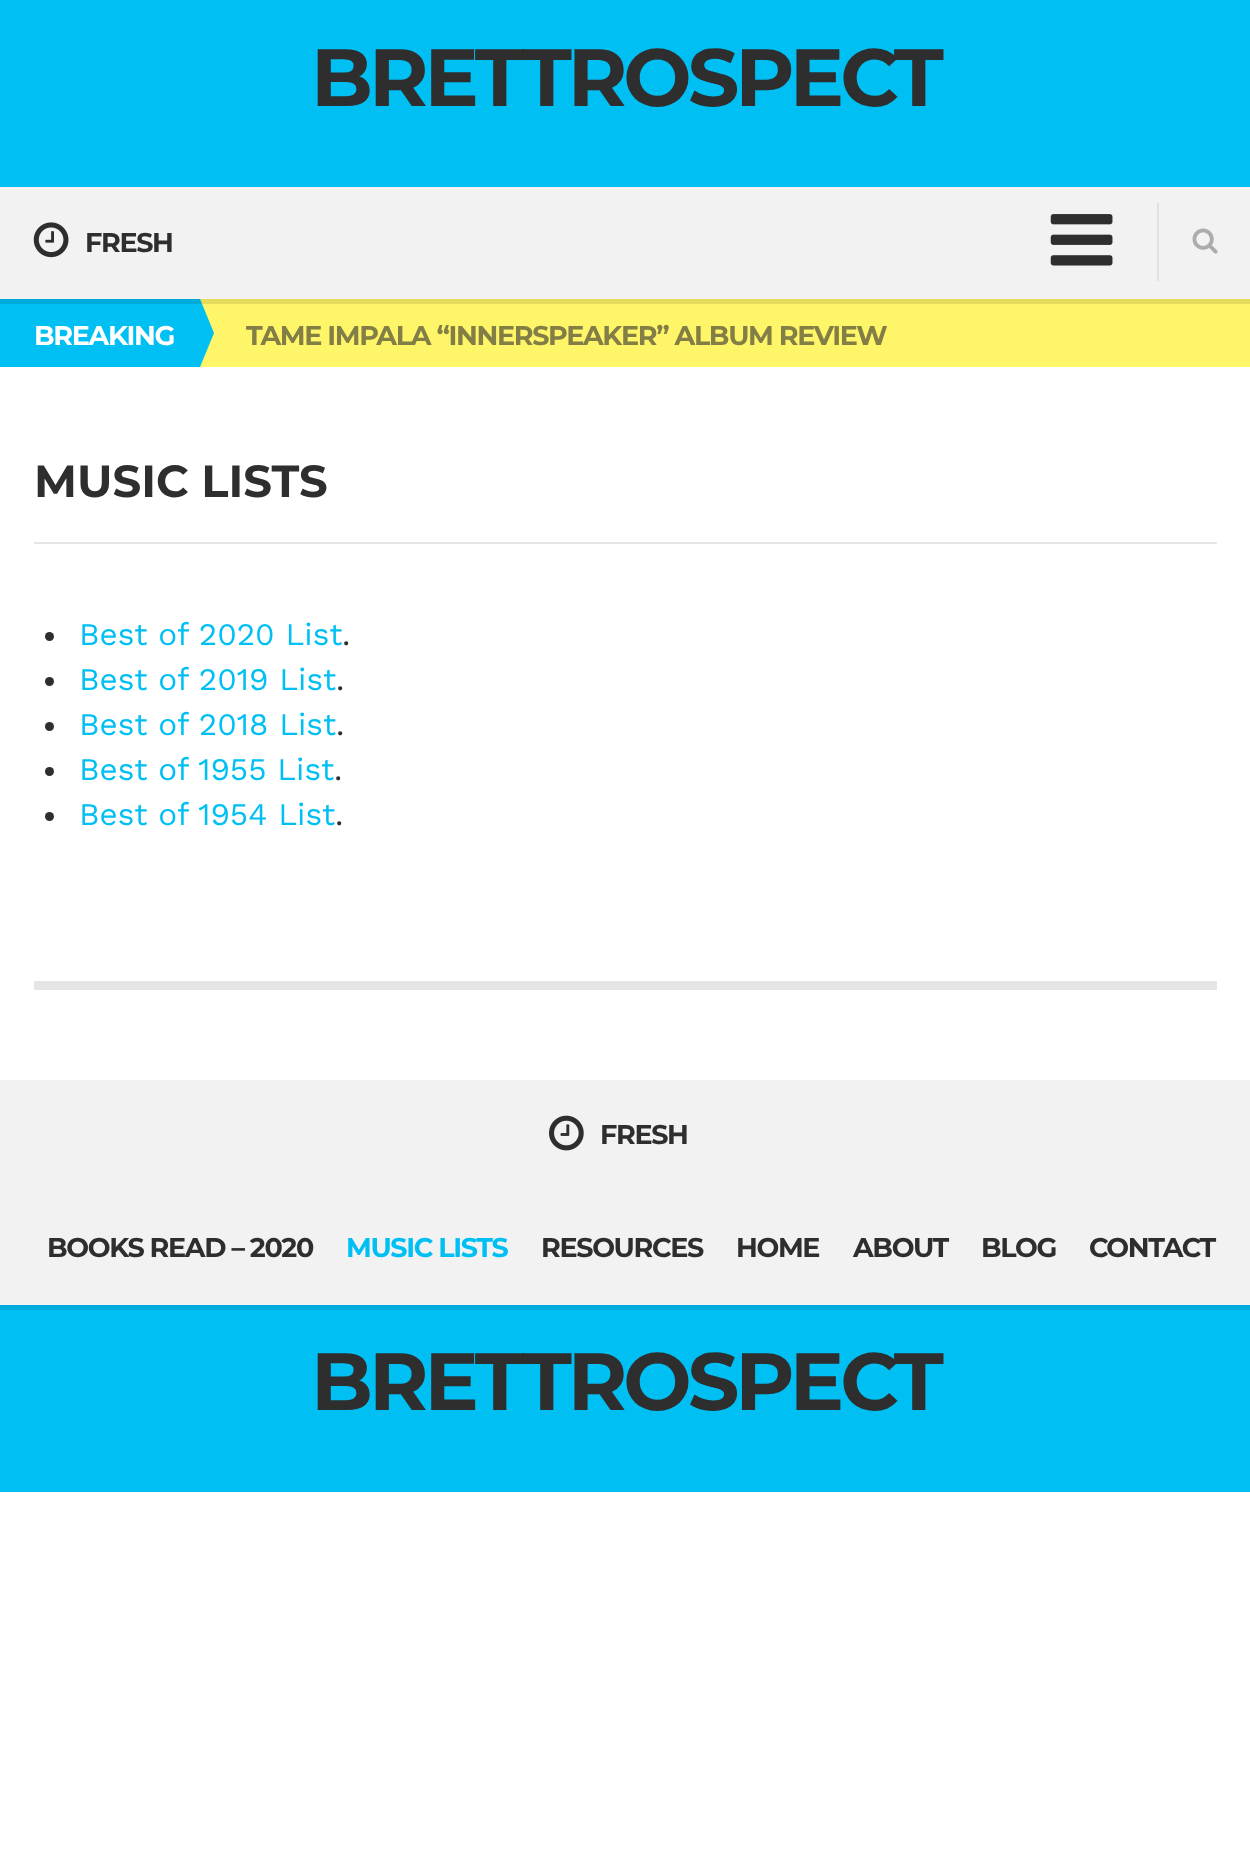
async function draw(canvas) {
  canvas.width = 1250
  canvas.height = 1866
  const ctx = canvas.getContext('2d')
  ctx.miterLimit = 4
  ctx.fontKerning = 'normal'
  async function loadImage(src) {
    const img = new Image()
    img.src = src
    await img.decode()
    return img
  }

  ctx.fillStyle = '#fff'
  ctx.fillRect(0, 0, 1250, 1866)
  ctx.fillStyle = '#00bff3'
  ctx.fillRect(0, 0, 1250, 187)
  ctx.letterSpacing = '-4px'
  ctx.font = 'bold 81px Montserrat'
  ctx.fillStyle = '#2e2e2e'
  ctx.fillText('BRETTROSPECT', 311, 106)
  ctx.fillStyle = '#00bff3'
  ctx.fillRect(0, 299, 200, 68)
  ctx.fillStyle = '#fff568'
  ctx.fillRect(200, 299, 1050, 68)
  ctx.fillStyle = '#00bff3'
  ctx.beginPath()
  ctx.moveTo(200, 367)
  ctx.lineTo(200, 299)
  ctx.lineTo(214, 333)
  ctx.closePath()
  ctx.fill()
  ctx.fillStyle = '#0000001a'
  ctx.fillRect(0, 299, 1250, 5)
  ctx.fillStyle = '#f2f2f2'
  ctx.fillRect(0, 187, 1250, 112)
  ctx.drawImage(await loadImage('image0.png'), 33, 222, 36, 36)
  ctx.letterSpacing = '-1.35px'
  ctx.font = 'bold 27px Montserrat'
  ctx.fillStyle = '#2e2e2e'
  ctx.fillText('FRESH', 85, 252)
  ctx.drawImage(await loadImage('image1.png'), 1050, 214, 63, 52)
  ctx.fillStyle = '#e0e0e0'
  ctx.fillRect(1157, 203, 2, 78)
  ctx.drawImage(await loadImage('image2.png'), 1192, 228, 26, 26)
  ctx.fillStyle = '#fff'
  ctx.fillText('BREAKING', 34, 345)
  ctx.fillStyle = '#827e45'
  ctx.fillText('TAME IMPALA “INNERSPEAKER” ALBUM REVIEW', 246, 345)
  ctx.fillStyle = '#e5e5e5'
  ctx.fillRect(34, 542, 1183, 2)
  ctx.letterSpacing = '0px'
  ctx.font = 'bold 45px Montserrat'
  ctx.fillStyle = '#2e2e2e'
  ctx.fillText('MUSIC LISTS', 34, 497)
  ctx.beginPath()
  ctx.arc(49.5, 636.5, 4.5, 0, 2 * Math.PI)
  ctx.fill()
  ctx.font = '31.5px Work Sans'
  ctx.fillStyle = '#00bff3'
  ctx.fillText('Best of 2020 List', 79, 645)
  ctx.fillStyle = '#2e2e2e'
  ctx.fillText('.', 342, 645)
  ctx.beginPath()
  ctx.arc(49.5, 681.5, 4.5, 0, 2 * Math.PI)
  ctx.fill()
  ctx.fillStyle = '#00bff3'
  ctx.fillText('Best of 2019 List', 79, 690)
  ctx.fillStyle = '#2e2e2e'
  ctx.fillText('.', 336, 690)
  ctx.beginPath()
  ctx.arc(49.5, 726.5, 4.5, 0, 2 * Math.PI)
  ctx.fill()
  ctx.fillStyle = '#00bff3'
  ctx.fillText('Best of 2018 List', 79, 735)
  ctx.fillStyle = '#2e2e2e'
  ctx.fillText('.', 336, 735)
  ctx.beginPath()
  ctx.arc(49.5, 771.5, 4.5, 0, 2 * Math.PI)
  ctx.fill()
  ctx.fillStyle = '#00bff3'
  ctx.fillText('Best of 1955 List', 79, 780)
  ctx.fillStyle = '#2e2e2e'
  ctx.fillText('.', 334, 780)
  ctx.beginPath()
  ctx.arc(49.5, 816.5, 4.5, 0, 2 * Math.PI)
  ctx.fill()
  ctx.fillStyle = '#00bff3'
  ctx.fillText('Best of 1954 List', 79, 825)
  ctx.fillStyle = '#2e2e2e'
  ctx.fillText('.', 335, 825)
  ctx.fillStyle = '#e5e5e5'
  ctx.fillRect(34, 981, 1183, 9)
  ctx.fillStyle = '#00acdb'
  ctx.fillRect(0, 1305, 1250, 5)
  ctx.fillStyle = '#f2f2f2'
  ctx.fillRect(0, 1080, 1250, 225)
  ctx.drawImage(await loadImage('image3.png'), 549, 1115, 35, 36)
  ctx.letterSpacing = '-1.35px'
  ctx.font = 'bold 27px Montserrat'
  ctx.fillStyle = '#2e2e2e'
  ctx.fillText('FRESH', 600, 1144)
  ctx.fillText('BOOKS READ – 2020', 47, 1257)
  ctx.fillStyle = '#00bff3'
  ctx.fillText('MUSIC LISTS', 346, 1257)
  ctx.fillStyle = '#2e2e2e'
  ctx.fillText('RESOURCES', 541, 1257)
  ctx.fillText('HOME', 736, 1257)
  ctx.fillText('ABOUT', 853, 1257)
  ctx.fillText('BLOG', 981, 1257)
  ctx.fillText('CONTACT', 1089, 1257)
  ctx.fillStyle = '#00bff3'
  ctx.fillRect(0, 1310, 1250, 182)
  ctx.letterSpacing = '-4px'
  ctx.font = 'bold 81px Montserrat'
  ctx.fillStyle = '#2e2e2e'
  ctx.fillText('BRETTROSPECT', 311, 1410)
}

draw(document.querySelector('canvas'))
